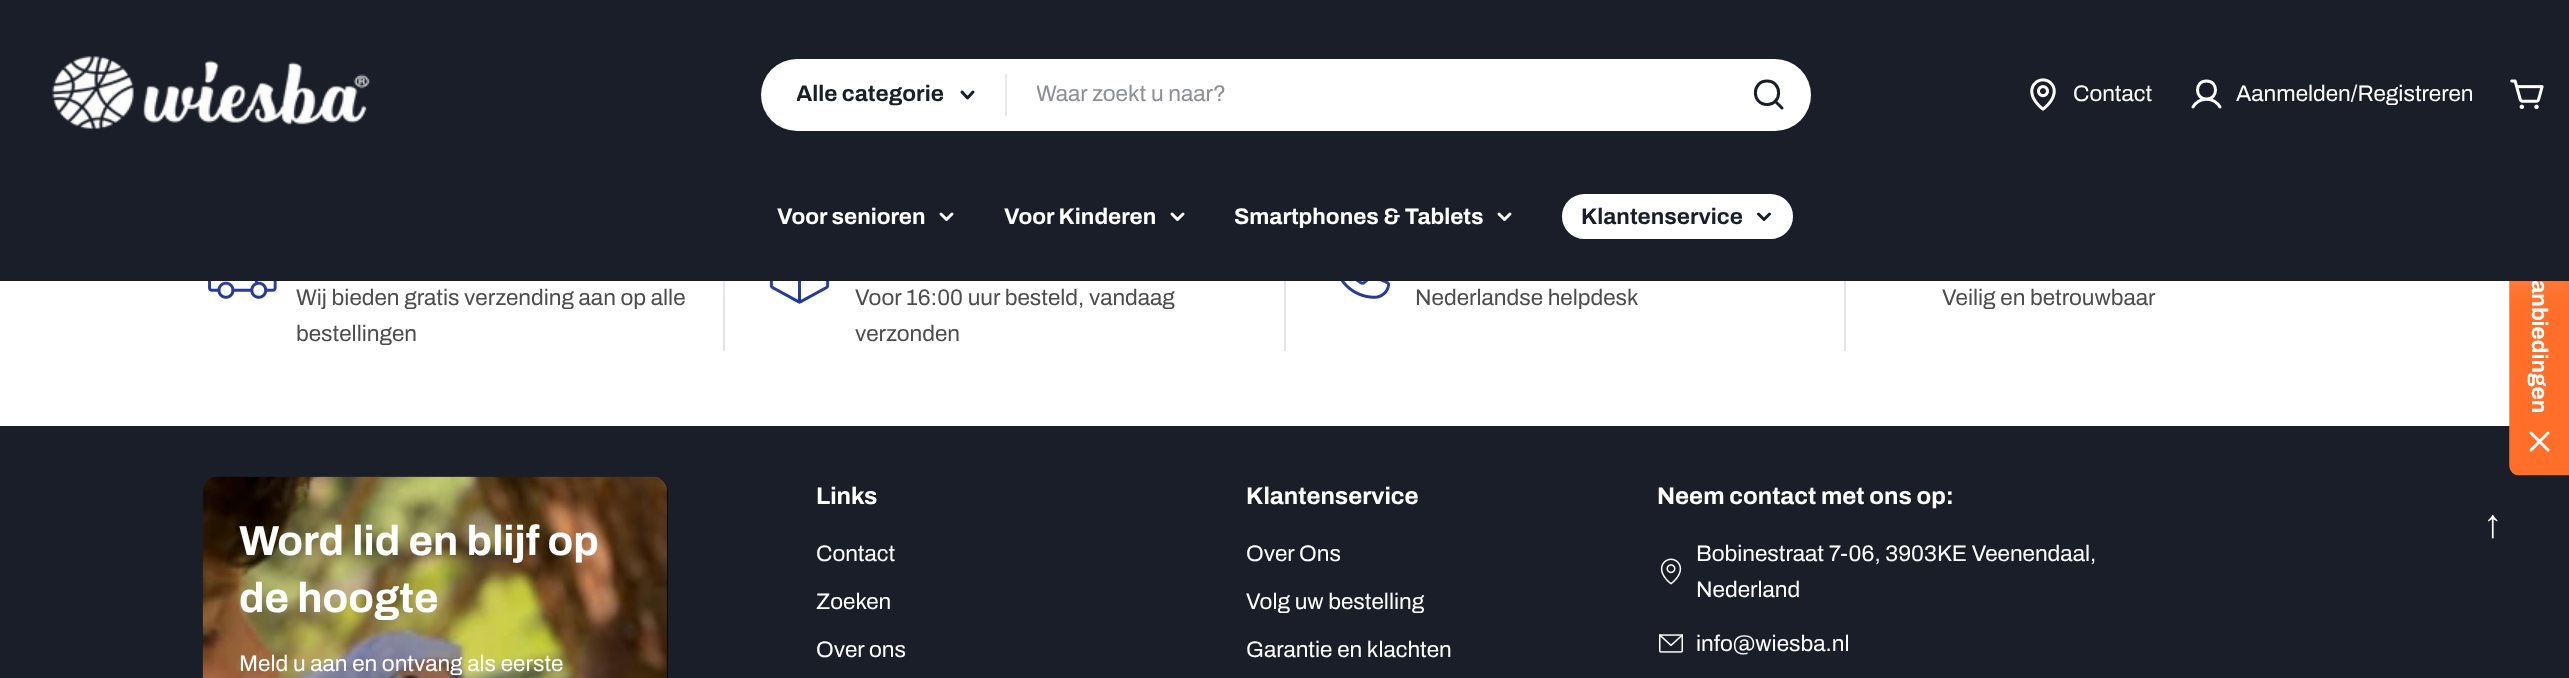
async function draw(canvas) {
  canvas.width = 2569
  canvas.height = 678
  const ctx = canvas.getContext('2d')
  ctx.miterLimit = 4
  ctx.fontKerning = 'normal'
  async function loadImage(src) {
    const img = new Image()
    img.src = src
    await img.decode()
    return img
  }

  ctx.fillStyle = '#fff'
  ctx.fillRect(0, 0, 2569, 678)
  ctx.drawImage(await loadImage('image3.png'), 208, 281, 69, 18)
  ctx.fillStyle = '#e5e5e5'
  ctx.fillRect(723, 281, 2, 70)
  ctx.drawImage(await loadImage('image4.png'), 769, 281, 61, 23)
  ctx.fillRect(1284, 281, 2, 70)
  ctx.drawImage(await loadImage('image5.png'), 1340, 281, 51, 18)
  ctx.fillRect(1844, 281, 2, 70)
  ctx.fillStyle = '#191e28'
  ctx.fillRect(0, 426, 2569, 252)
  ctx.fillStyle = '#ff6f29'
  ctx.beginPath()
  ctx.moveTo(2510, 466)
  ctx.lineTo(2510, 212)
  ctx.bezierCurveTo(2510, 207, 2514, 203, 2518, 203)
  ctx.lineTo(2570, 203)
  ctx.lineTo(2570, 475)
  ctx.lineTo(2518, 475)
  ctx.bezierCurveTo(2514, 475, 2510, 471, 2510, 466)
  ctx.closePath()
  ctx.fill()
  ctx.beginPath()
  ctx.moveTo(2510, 466)
  ctx.lineTo(2510, 212)
  ctx.bezierCurveTo(2510, 207.5, 2514, 203.5, 2518.5, 203.5)
  ctx.lineTo(2569, 203.5)
  ctx.lineTo(2569, 474.5)
  ctx.lineTo(2518.5, 474.5)
  ctx.bezierCurveTo(2514, 474.5, 2510, 470.5, 2510, 466)
  ctx.closePath()
  ctx.strokeStyle = '#ff6f29'
  ctx.lineWidth = 1.5
  ctx.stroke()
  ctx.fillStyle = '#ffffff1a'
  ctx.filter = 'blur(13.5px)'
  ctx.beginPath()
  ctx.rect(0, 194, 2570, 93)
  ctx.fill()
  ctx.filter = 'none'
  ctx.font = 'bold 22.5px Archivo'
  ctx.fillStyle = '#fff'
  ctx.save()
  ctx.translate(2532, 264)
  ctx.rotate(90 * Math.PI / 180)
  ctx.fillText('Aanbiedingen', 0, 0)
  ctx.restore()
  ctx.fillStyle = '#191e28'
  ctx.fillRect(0, 0, 2569, 281)
  ctx.drawImage(await loadImage('image0.png'), 52, 56, 318, 74)
  ctx.fillStyle = '#fff'
  ctx.beginPath()
  ctx.roundRect(761, 59, 1050, 72, 36)
  ctx.fill()
  ctx.save()
  ctx.beginPath()
  ctx.rect(797, 59, 150, 72)
  ctx.clip()
  ctx.fillStyle = '#191e28'
  ctx.fillText('Alle categorie', 796, 101)
  ctx.restore()
  ctx.beginPath()
  ctx.moveTo(973, 92)
  ctx.lineTo(967.5, 98)
  ctx.lineTo(962, 92)
  ctx.strokeStyle = '#191e28'
  ctx.lineWidth = 3
  ctx.lineCap = 'round'
  ctx.lineJoin = 'round'
  ctx.stroke()
  ctx.fillStyle = '#e8e9ea'
  ctx.fillRect(1005, 74, 2, 42)
  ctx.save()
  ctx.beginPath()
  ctx.rect(1037, 83, 693, 24)
  ctx.clip()
  ctx.font = '22.5px Archivo'
  ctx.fillStyle = '#8c8f94'
  ctx.fillText('Waar zoekt u naar?', 1036, 101)
  ctx.restore()
  ctx.beginPath()
  ctx.moveTo(1767, 104.5)
  ctx.bezierCurveTo(1782.5, 104.5, 1782.5, 81, 1767, 81)
  ctx.bezierCurveTo(1751.5, 81, 1751.5, 104.5, 1767, 104.5)
  ctx.closePath()
  ctx.moveTo(1775, 101)
  ctx.lineTo(1782, 108)
  ctx.stroke()
  ctx.drawImage(await loadImage('image1.png'), 2030, 78, 26, 33)
  ctx.font = '22.5px Archivo'
  ctx.fillStyle = '#fff'
  ctx.fillText('Contact', 2073, 101)
  ctx.beginPath()
  ctx.moveTo(2206.5, 99)
  ctx.bezierCurveTo(2218.5, 99, 2218.5, 81, 2206.5, 81)
  ctx.bezierCurveTo(2194.5, 81, 2194.5, 99, 2206.5, 99)
  ctx.closePath()
  ctx.moveTo(2193, 107)
  ctx.bezierCurveTo(2199, 96.5, 2214, 96.5, 2220, 107)
  ctx.strokeStyle = '#fff'
  ctx.stroke()
  ctx.fillText('Aanmelden/Registreren', 2236, 101)
  ctx.drawImage(await loadImage('image2.png'), 2510, 79, 34, 31)
  ctx.font = 'bold 22.5px Archivo'
  ctx.fillText('Voor senioren', 777, 224)
  ctx.beginPath()
  ctx.moveTo(952, 214)
  ctx.lineTo(946.5, 219.5)
  ctx.lineTo(941, 214)
  ctx.stroke()
  ctx.fillText('Voor Kinderen', 1004, 224)
  ctx.beginPath()
  ctx.moveTo(1183, 214)
  ctx.lineTo(1177.5, 219.5)
  ctx.lineTo(1172, 214)
  ctx.stroke()
  ctx.fillText('Smartphones & Tablets', 1234, 224)
  ctx.beginPath()
  ctx.moveTo(1510, 214)
  ctx.lineTo(1504.5, 219.5)
  ctx.lineTo(1499, 214)
  ctx.stroke()
  ctx.beginPath()
  ctx.roundRect(1563, 195, 229, 43, 21.5)
  ctx.fill()
  ctx.lineWidth = 2
  ctx.lineJoin = 'miter'
  ctx.stroke()
  ctx.fillStyle = '#191e28'
  ctx.fillText('Klantenservice', 1581, 224)
  ctx.beginPath()
  ctx.moveTo(1769.5, 214)
  ctx.lineTo(1764, 219.5)
  ctx.lineTo(1758.5, 214)
  ctx.strokeStyle = '#191e28'
  ctx.lineWidth = 3
  ctx.lineJoin = 'round'
  ctx.stroke()
  ctx.font = '22.5px Archivo'
  ctx.fillStyle = '#4d4d4d'
  ctx.fillText('Wij bieden gratis verzending aan op alle', 296, 305)
  ctx.fillText('bestellingen', 296, 341)
  ctx.fillText('Voor 16:00 uur besteld, vandaag', 855, 305)
  ctx.fillText('verzonden', 855, 341)
  ctx.fillText('Nederlandse helpdesk', 1415, 305)
  ctx.fillText('Veilig en betrouwbaar', 1942, 305)
  ctx.fillStyle = '#000'
  ctx.beginPath()
  ctx.roundRect(203, 477, 465, 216, 15)
  ctx.fill()
  ctx.drawImage(await loadImage('image6.png'), 202, 476, 466, 202)
  ctx.fillStyle = '#00000026'
  ctx.beginPath()
  ctx.roundRect(203, 477, 465, 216, 15)
  ctx.fill()
  ctx.font = 'bold 42px Archivo'
  ctx.fillStyle = '#fff'
  ctx.fillText('Word lid en blijf op', 239, 555)
  ctx.fillText('de hoogte', 239, 612)
  ctx.font = '22.5px Archivo'
  ctx.fillText('Meld u aan en ontvang als eerste', 239, 671)
  ctx.font = 'bold 24px Archivo'
  ctx.fillText('Links', 816, 504)
  ctx.font = '22.5px Archivo'
  ctx.fillText('Contact', 816, 561)
  ctx.fillText('Zoeken', 816, 609)
  ctx.fillText('Over ons', 816, 657)
  ctx.font = 'bold 24px Archivo'
  ctx.fillText('Klantenservice', 1246, 504)
  ctx.font = '22.5px Archivo'
  ctx.fillText('Over Ons', 1246, 561)
  ctx.fillText('Volg uw bestelling', 1246, 609)
  ctx.fillText('Garantie en klachten', 1246, 657)
  ctx.font = 'bold 24px Archivo'
  ctx.fillText('Neem contact met ons op:', 1657, 504)
  ctx.drawImage(await loadImage('image7.png'), 1660, 558, 22, 27)
  ctx.font = '22.5px Archivo'
  ctx.fillText('Bobinestraat 7-06, 3903KE Veenendaal,', 1696, 561)
  ctx.fillText('Nederland', 1696, 597)
  ctx.drawImage(await loadImage('image8.png'), 1659, 634, 24, 19)
  ctx.fillText('info@wiesba.nl', 1696, 651)
  ctx.beginPath()
  ctx.moveTo(2548, 450)
  ctx.lineTo(2531, 433)
  ctx.moveTo(2531, 450)
  ctx.lineTo(2548, 433)
  ctx.strokeStyle = '#fff'
  ctx.stroke()
  ctx.font = 'bold 39px Liberation Sans'
  ctx.fillText('↑', 2483, 537)
}

draw(document.querySelector('canvas'))
